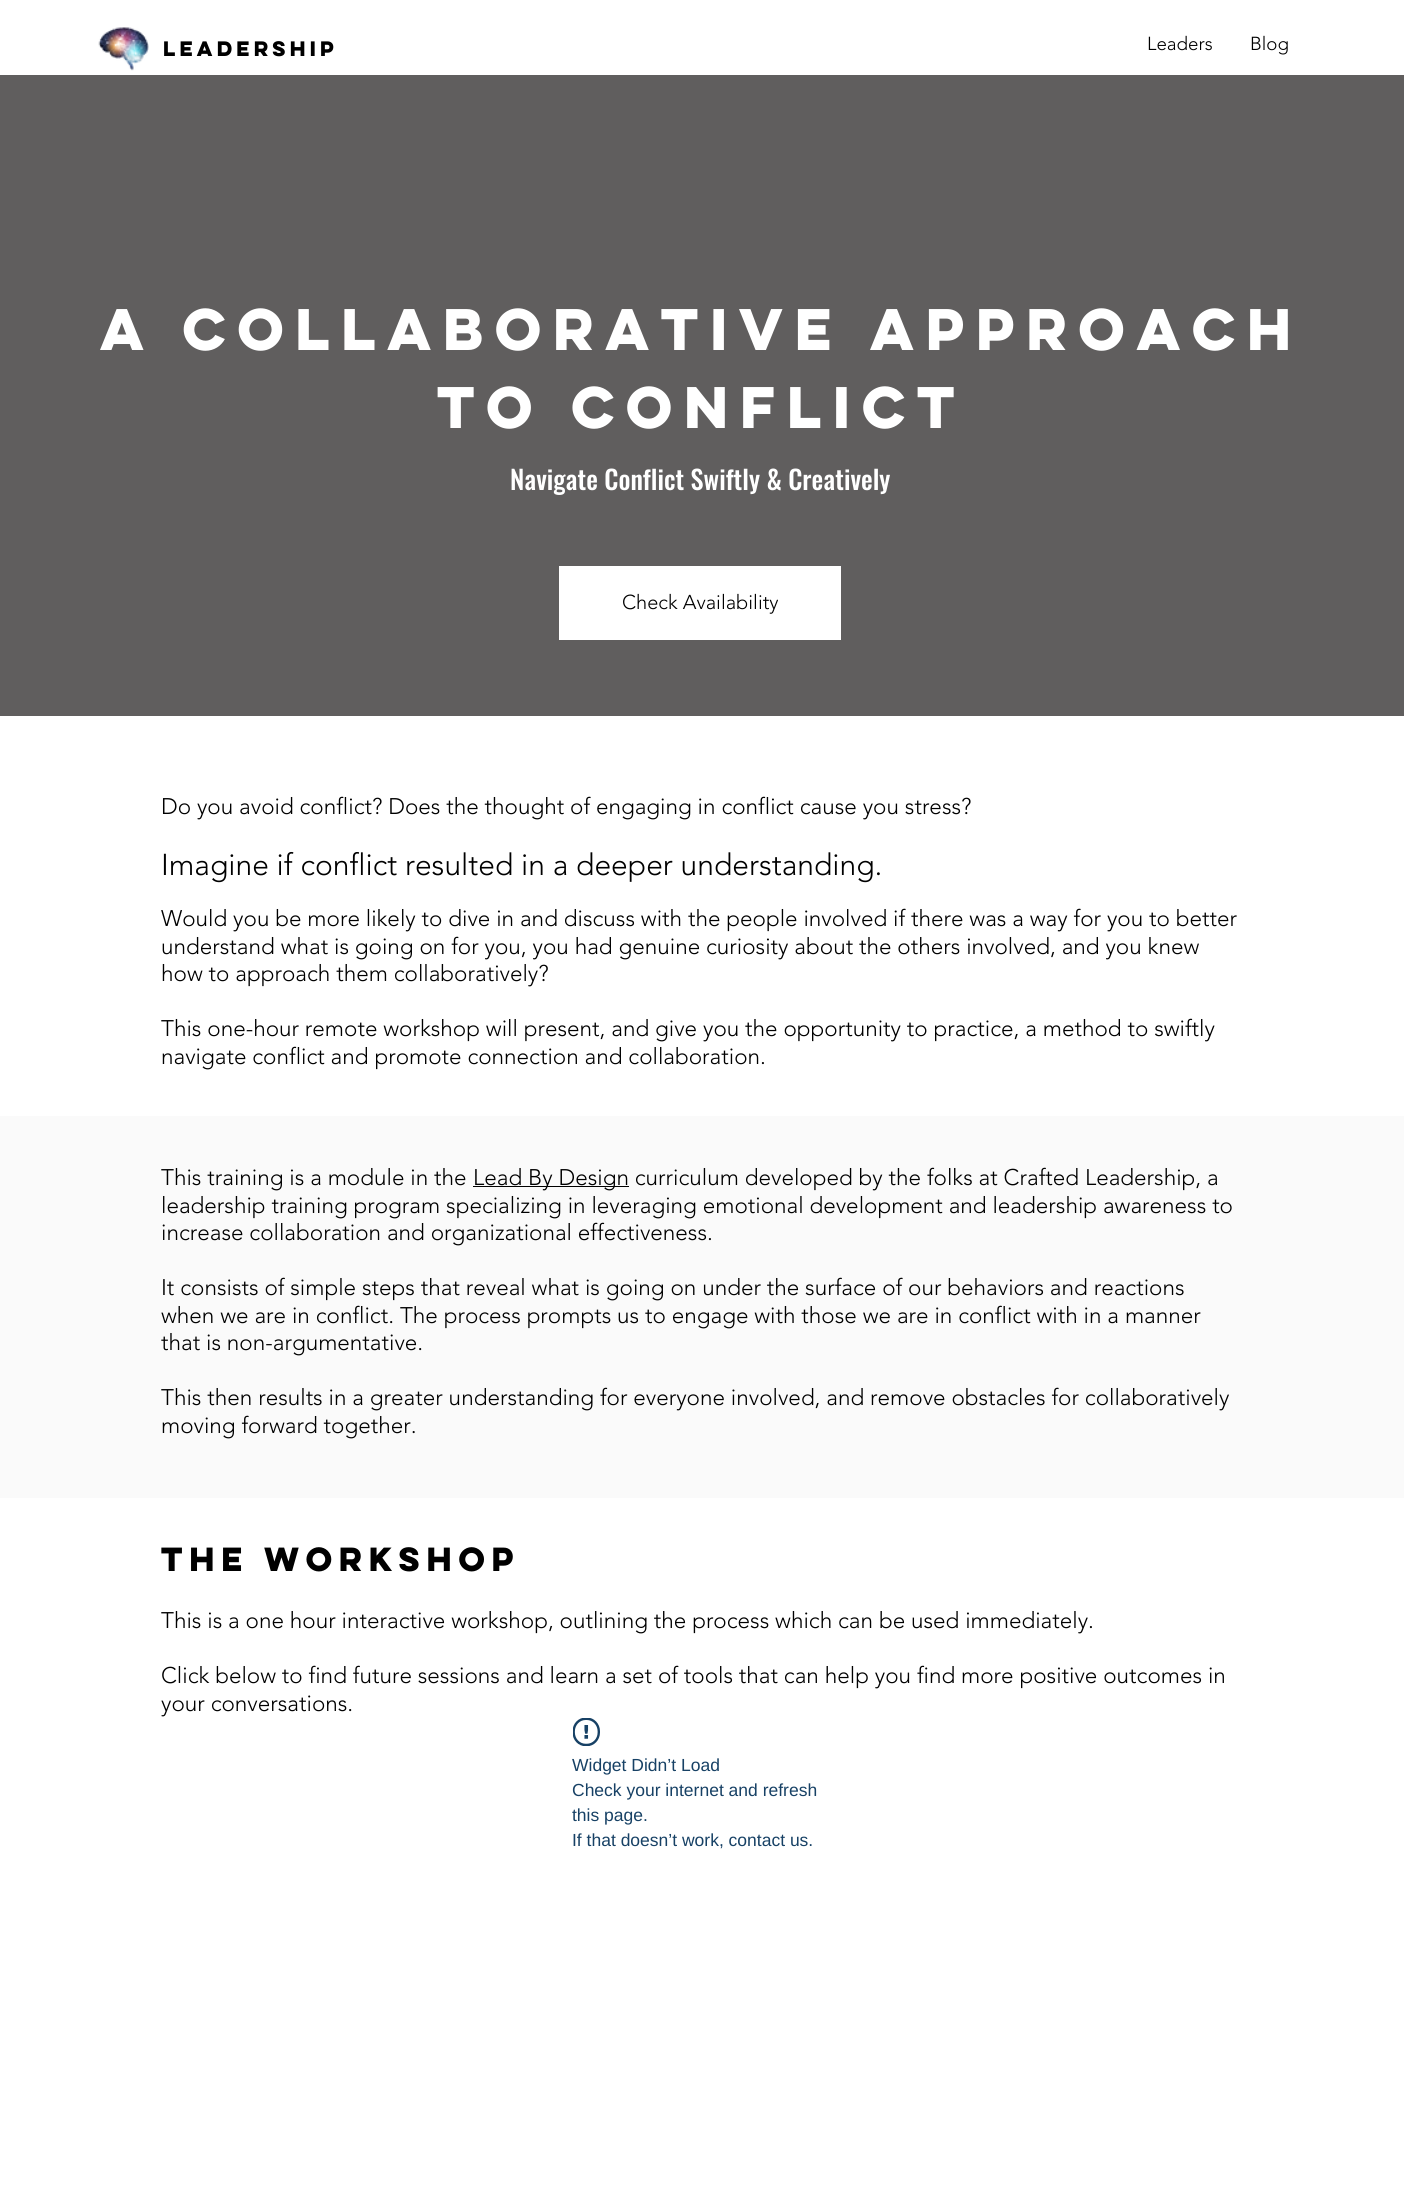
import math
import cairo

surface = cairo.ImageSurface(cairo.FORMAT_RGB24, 1404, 2205)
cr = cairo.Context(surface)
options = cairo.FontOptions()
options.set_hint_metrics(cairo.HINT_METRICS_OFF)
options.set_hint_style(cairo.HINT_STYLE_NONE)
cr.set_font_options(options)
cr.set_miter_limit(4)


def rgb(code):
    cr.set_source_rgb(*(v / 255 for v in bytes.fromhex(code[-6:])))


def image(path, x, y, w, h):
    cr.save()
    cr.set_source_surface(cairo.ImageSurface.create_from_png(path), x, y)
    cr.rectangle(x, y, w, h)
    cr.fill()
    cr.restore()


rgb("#ffffff")
cr.paint()
image("img/1.png", 98, 27, 51, 44)
for x, y, w, h, color in [
    (0, 75, 1404, 641, "#605e5e"),
    (559, 566, 282, 74, "#ffffff"),
    (0, 1116, 1404, 382, "#fafafa"),
    (473, 1186, 156, 1, "#000000"),
]:
    rgb(color)
    cr.rectangle(x, y, w, h)
    cr.fill()
image("img/2.png", 573, 1718, 27, 28)
cr.select_font_face("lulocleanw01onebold", cairo.FONT_SLANT_NORMAL, cairo.FONT_WEIGHT_BOLD)
cr.set_font_size(18.75)
cr.move_to(163, 56)
cr.show_text("leadership")
cr.select_font_face("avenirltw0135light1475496 Light")
cr.move_to(1147, 50)
cr.show_text("Leaders")
cr.move_to(1250, 50)
cr.show_text("Blog")
cr.select_font_face("lulocleanw01onebold", cairo.FONT_SLANT_NORMAL, cairo.FONT_WEIGHT_BOLD)
cr.set_font_size(52.5)
rgb("#ffffff")
cr.move_to(100, 350)
cr.show_text("A collaborative approach")
cr.move_to(437, 428)
cr.show_text("to conflict")
cr.select_font_face("Oswald Medium")
cr.set_font_size(26.25)
cr.move_to(510, 490)
cr.show_text("Navigate Conflict Swiftly & Creatively")
cr.select_font_face("avenirltw0135light1475496 Light")
cr.set_font_size(20)
rgb("#000000")
cr.move_to(622, 609)
cr.show_text("Check Availability")
cr.set_font_size(22.5)
cr.move_to(161, 814)
cr.show_text("Do you avoid conflict? Does the thought of engaging in conflict cause you stress?")
cr.set_font_size(30)
cr.move_to(161, 875)
cr.show_text("Imagine if conflict resulted in a deeper understanding.")
cr.set_font_size(22.5)
for x, y, s in [
    (161, 926, "Would you be more likely to dive in and discuss with the people involved if there was a way for you to better"),
    (161, 954, "understand what is going on for you, you had genuine curiosity about the others involved, and you knew"),
    (161, 981, "how to approach them collaboratively?"),
    (161, 1036, "This one-hour remote workshop will present, and give you the opportunity to practice, a method to swiftly"),
    (161, 1064, "navigate conflict and promote connection and collaboration."),
    (161, 1185, "This training is a module in the"),
    (473, 1185, "Lead By Design curriculum developed by the folks at Crafted Leadership, a"),
    (161, 1213, "leadership training program specializing in leveraging emotional development and leadership awareness to"),
    (161, 1240, "increase collaboration and organizational effectiveness."),
    (161, 1295, "It consists of simple steps that reveal what is going on under the surface of our behaviors and reactions"),
    (161, 1323, "when we are in conflict. The process prompts us to engage with those we are in conflict with in a manner"),
    (161, 1350, "that is non-argumentative."),
    (161, 1405, "This then results in a greater understanding for everyone involved, and remove obstacles for collaboratively"),
    (161, 1433, "moving forward together."),
]:
    cr.move_to(x, y)
    cr.show_text(s)
cr.select_font_face("lulocleanw01onebold", cairo.FONT_SLANT_NORMAL, cairo.FONT_WEIGHT_BOLD)
cr.set_font_size(30)
cr.move_to(161, 1571)
cr.show_text("the workshop")
cr.select_font_face("avenirltw0135light1475496 Light")
cr.set_font_size(22.5)
for x, y, s in [
    (161, 1628, "This is a one hour interactive workshop, outlining the process which can be used immediately."),
    (161, 1683, "Click below to find future sessions and learn a set of tools that can help you find more positive outcomes in"),
    (161, 1711, "your conversations."),
]:
    cr.move_to(x, y)
    cr.show_text(s)
cr.select_font_face("Liberation Sans")
cr.set_font_size(17.5)
rgb("#174165")
for x, y, s in [
    (572, 1771, "Widget Didn’t Load"),
    (572, 1796, "Check your internet and refresh"),
    (572, 1821, "this page."),
    (572, 1846, "If that doesn’t work, contact us."),
]:
    cr.move_to(x, y)
    cr.show_text(s)
surface.write_to_png("page.png")
